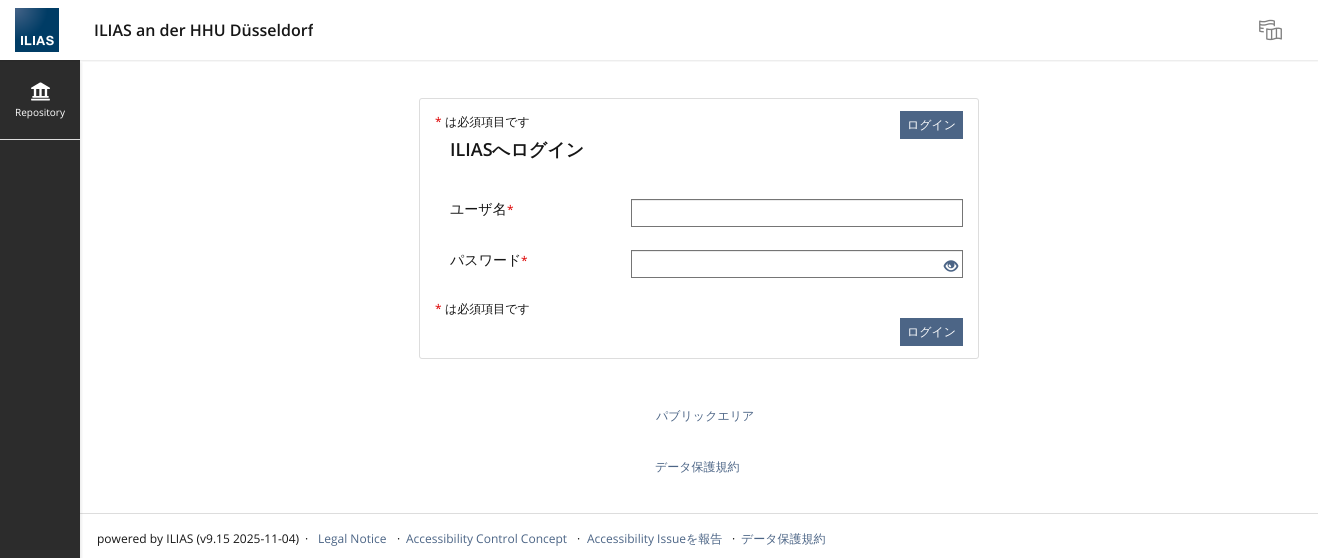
import math
import cairo

surface = cairo.ImageSurface(cairo.FORMAT_RGB24, 1318, 558)
cr = cairo.Context(surface)
options = cairo.FontOptions()
options.set_hint_metrics(cairo.HINT_METRICS_OFF)
options.set_hint_style(cairo.HINT_STYLE_NONE)
cr.set_font_options(options)
cr.set_miter_limit(4)


def rgb(code):
    cr.set_source_rgb(*(v / 255 for v in bytes.fromhex(code[-6:])))


def rrect(x, y, w, h, r):
    cr.new_sub_path()
    for i, (u, v) in enumerate([(x + w - r, y + h - r), (x + r, y + h - r), (x + r, y + r), (x + w - r, y + r)]):
        cr.arc(u, v, r, i * math.pi / 2, (i + 1) * math.pi / 2)
    cr.close_path()


def soft_shadow(x, y, w, h, r, blur, alpha):
    cr.push_group_with_content(cairo.CONTENT_ALPHA)
    cr.set_operator(cairo.OPERATOR_SOURCE)
    for i in range(15, -16, -2):
        e = blur * i / 6
        if min(w, h) + 2 * e > 0:
            cr.set_source_rgba(0, 0, 0, alpha * math.erfc((i - 1) / 8.5) / 2)
            rrect(x - e, y - e, w + 2 * e, h + 2 * e, max(0, min(r + e + blur * .6, min(w, h) / 2 + e)))
            cr.fill()
    cr.mask(cr.pop_group())


def image(path, x, y, w, h):
    cr.save()
    cr.set_source_surface(cairo.ImageSurface.create_from_png(path), x, y)
    cr.rectangle(x, y, w, h)
    cr.fill()
    cr.restore()


rgb("#ffffff")
cr.paint()
rgb("#2c2c2c")
cr.rectangle(0, 60, 80, 498)
cr.fill()
cr.save()
cr.rectangle(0, 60, 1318, 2)
cr.clip()
rgb("#000000")
soft_shadow(0, 1, 1318, 60, 0, 1, 0.1)
cr.restore()
image("img/1.png", 15, 8, 44, 44)
image("img/2.png", 1259, 19, 23, 22)
rgb("#dddddd")
cr.rectangle(80, 513, 1238, 1)
cr.fill()
cr.save()
cr.rectangle(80, 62, 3, 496)
cr.clip()
rgb("#000000")
soft_shadow(1, 63, 80, 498, 0, 2, 0.1)
cr.restore()
cr.rectangle(0, 139, 80, 1)
cr.fill()
image("img/3.png", 31, 82, 19, 19)
rrect(419.5, 98.5, 559, 260, 2.5)
cr.set_line_width(1)
cr.stroke()
rgb("#4c6586")
cr.rectangle(900, 111, 63, 28)
cr.fill()
rgb("#ececec")
cr.rectangle(632, 200, 330, 1)
cr.fill()
cr.rectangle(631.5, 199.5, 331, 27)
rgb("#757575")
cr.stroke()
rgb("#ececec")
cr.rectangle(632, 251, 330, 1)
cr.fill()
cr.rectangle(631.5, 250.5, 331, 27)
rgb("#757575")
cr.stroke()
image("img/4.png", 943, 260, 16, 12)
rgb("#4c6586")
cr.rectangle(900, 318, 63, 28)
cr.fill()
cr.save()
cr.rectangle(15, 8, 298, 45)
cr.clip()
cr.select_font_face("Open Sans SemiBold")
cr.set_font_size(16)
rgb("#161616")
cr.move_to(94, 36)
cr.show_text("ILIAS an der HHU Düsseldorf")
cr.restore()
cr.select_font_face("Open Sans")
cr.set_font_size(10)
rgb("#ffffff")
cr.move_to(15, 116)
cr.show_text("Repository")
cr.set_font_size(12)
rgb("#dd0000")
cr.move_to(435, 126)
cr.show_text("*")
cr.select_font_face("WenQuanYi Zen Hei Medium")
rgb("#161616")
cr.move_to(445, 126)
cr.show_text("は必須項目です")
rgb("#ffffff")
cr.move_to(907, 129)
cr.show_text("ログイン")
cr.select_font_face("Open Sans SemiBold")
cr.set_font_size(18)
rgb("#161616")
cr.move_to(450, 156)
cr.show_text("ILIAS")
cr.select_font_face("WenQuanYi Zen Hei", cairo.FONT_SLANT_NORMAL, cairo.FONT_WEIGHT_BOLD)
cr.move_to(492, 156)
cr.show_text("へログイン")
cr.select_font_face("WenQuanYi Zen Hei Medium")
cr.set_font_size(14)
cr.move_to(450, 214)
cr.show_text("ユーザ名")
cr.select_font_face("Open Sans")
cr.set_font_size(12)
rgb("#dd0000")
cr.move_to(507, 214)
cr.show_text("*")
cr.select_font_face("WenQuanYi Zen Hei Medium")
cr.set_font_size(14)
rgb("#161616")
cr.move_to(450, 265)
cr.show_text("パスワード")
cr.select_font_face("Open Sans")
cr.set_font_size(12)
rgb("#dd0000")
cr.move_to(521, 265)
cr.show_text("*")
cr.move_to(435, 313)
cr.show_text("*")
cr.select_font_face("WenQuanYi Zen Hei Medium")
rgb("#161616")
cr.move_to(445, 313)
cr.show_text("は必須項目です")
rgb("#ffffff")
cr.move_to(907, 336)
cr.show_text("ログイン")
rgb("#4c6586")
cr.move_to(656, 420)
cr.show_text("パブリックエリア")
cr.move_to(655, 471)
cr.show_text("データ保護規約")
cr.select_font_face("Open Sans")
rgb("#161616")
cr.move_to(97, 543)
cr.show_text("powered by ILIAS (v9.15 2025-11-04)")
cr.move_to(305, 543)
cr.show_text("·")
rgb("#4c6586")
cr.move_to(318, 543)
cr.show_text("Legal Notice")
rgb("#161616")
cr.move_to(397, 543)
cr.show_text("·")
rgb("#4c6586")
cr.move_to(406, 543)
cr.show_text("Accessibility Control Concept")
rgb("#161616")
cr.move_to(577, 543)
cr.show_text("·")
rgb("#4c6586")
cr.move_to(587, 543)
cr.show_text("Accessibility Issue")
cr.select_font_face("WenQuanYi Zen Hei Medium")
cr.move_to(686, 543)
cr.show_text("を報告")
cr.select_font_face("Open Sans")
rgb("#161616")
cr.move_to(732, 543)
cr.show_text("·")
cr.select_font_face("WenQuanYi Zen Hei Medium")
rgb("#4c6586")
cr.move_to(741, 543)
cr.show_text("データ保護規約")
surface.write_to_png("page.png")
